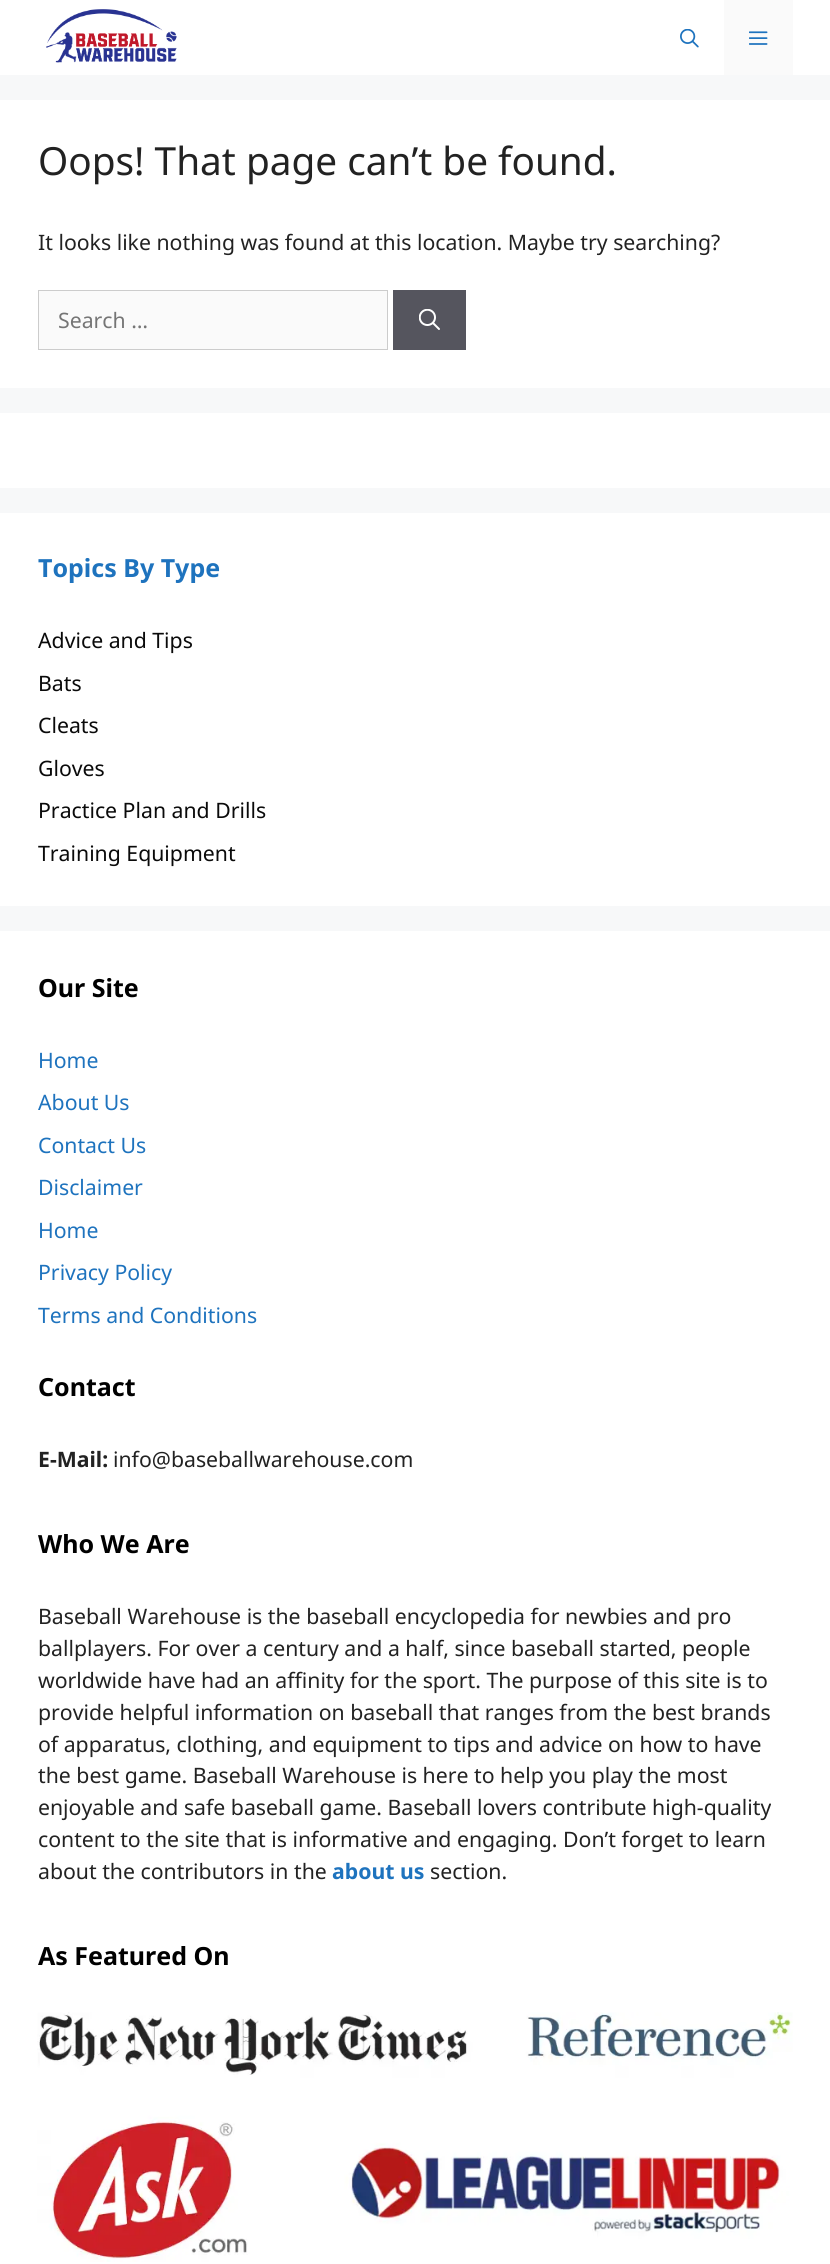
import math
import cairo

surface = cairo.ImageSurface(cairo.FORMAT_RGB24, 830, 2264)
cr = cairo.Context(surface)
options = cairo.FontOptions()
options.set_hint_metrics(cairo.HINT_METRICS_OFF)
options.set_hint_style(cairo.HINT_STYLE_NONE)
cr.set_font_options(options)
cr.set_miter_limit(4)


def rgb(code):
    cr.set_source_rgb(*(v / 255 for v in bytes.fromhex(code[-6:])))


def image(path, x, y, w, h):
    cr.save()
    cr.set_source_surface(cairo.ImageSurface.create_from_png(path), x, y)
    cr.rectangle(x, y, w, h)
    cr.fill()
    cr.restore()


rgb("#f7f8f9")
cr.paint()
rgb("#ffffff")
cr.rectangle(0, 0, 830, 75)
cr.fill()
image("img/1.png", 46, 9, 131, 54)
image("img/2.png", 680, 29, 19, 19)
rgb("#fafafa")
cr.rectangle(724, 0, 69, 75)
cr.fill()
image("img/3.png", 749, 31, 19, 14)
rgb("#ffffff")
cr.rectangle(0, 100, 830, 288)
cr.fill()
rgb("#fafafa")
cr.rectangle(38.5, 290.5, 349, 59)
cr.fill_preserve()
rgb("#cccccc")
cr.set_line_width(1)
cr.stroke()
rgb("#55555e")
cr.rectangle(393, 290, 73, 60)
cr.fill()
image("img/4.png", 419, 309, 21, 21)
for x, y, w, h, color in [
    (0, 413, 830, 75, "#ffffff"),
    (0, 513, 830, 393, "#ffffff"),
    (0, 931, 830, 1333, "#ffffff"),
]:
    rgb(color)
    cr.rectangle(x, y, w, h)
    cr.fill()
image("img/5.png", 37, 2012, 756, 250)
cr.select_font_face("Noto Sans")
cr.set_font_size(38.75)
rgb("#222222")
cr.move_to(38, 175)
cr.show_text("Oops! That page can’t be found.")
cr.set_font_size(21.25)
cr.move_to(38, 250)
cr.show_text("It looks like nothing was found at this location. Maybe try searching?")
rgb("#757575")
cr.move_to(58, 328)
cr.show_text("Search …")
cr.select_font_face("Noto Sans", cairo.FONT_SLANT_NORMAL, cairo.FONT_WEIGHT_BOLD)
cr.set_font_size(25)
rgb("#1e73be")
cr.move_to(38, 577)
cr.show_text("Topics By Type")
cr.select_font_face("Noto Sans")
cr.set_font_size(21.25)
rgb("#0a0a0a")
for x, y, s in [
    (38, 648, "Advice and Tips"),
    (38, 691, "Bats"),
    (38, 733, "Cleats"),
    (38, 776, "Gloves"),
    (38, 818, "Practice Plan and Drills"),
    (38, 861, "Training Equipment"),
]:
    cr.move_to(x, y)
    cr.show_text(s)
cr.select_font_face("Noto Sans", cairo.FONT_SLANT_NORMAL, cairo.FONT_WEIGHT_BOLD)
cr.set_font_size(25)
rgb("#000000")
cr.move_to(38, 997)
cr.show_text("Our Site")
cr.select_font_face("Noto Sans")
cr.set_font_size(21.25)
rgb("#1e73be")
for x, y, s in [
    (38, 1068, "Home"),
    (38, 1110, "About Us"),
    (38, 1153, "Contact Us"),
    (38, 1195, "Disclaimer"),
    (38, 1238, "Home"),
    (38, 1280, "Privacy Policy"),
    (38, 1323, "Terms and Conditions"),
]:
    cr.move_to(x, y)
    cr.show_text(s)
cr.select_font_face("Noto Sans", cairo.FONT_SLANT_NORMAL, cairo.FONT_WEIGHT_BOLD)
cr.set_font_size(25)
rgb("#000000")
cr.move_to(38, 1396)
cr.show_text("Contact")
cr.set_font_size(21.25)
rgb("#222222")
cr.move_to(38, 1467)
cr.show_text("E-Mail:")
cr.select_font_face("Noto Sans")
cr.move_to(113, 1467)
cr.show_text("info@baseballwarehouse.com")
cr.select_font_face("Noto Sans", cairo.FONT_SLANT_NORMAL, cairo.FONT_WEIGHT_BOLD)
cr.set_font_size(25)
rgb("#000000")
cr.move_to(38, 1553)
cr.show_text("Who We Are")
cr.select_font_face("Noto Sans")
cr.set_font_size(21.25)
rgb("#222222")
for x, y, s in [
    (38, 1624, "Baseball Warehouse is the baseball encyclopedia for newbies and pro"),
    (38, 1656, "ballplayers. For over a century and a half, since baseball started, people"),
    (38, 1688, "worldwide have had an affinity for the sport. The purpose of this site is to"),
    (38, 1720, "provide helpful information on baseball that ranges from the best brands"),
    (38, 1752, "of apparatus, clothing, and equipment to tips and advice on how to have"),
    (38, 1783, "the best game. Baseball Warehouse is here to help you play the most"),
    (38, 1815, "enjoyable and safe baseball game. Baseball lovers contribute high-quality"),
    (38, 1847, "content to the site that is informative and engaging. Don’t forget to learn"),
    (38, 1879, "about the contributors in the"),
]:
    cr.move_to(x, y)
    cr.show_text(s)
cr.select_font_face("Noto Sans", cairo.FONT_SLANT_NORMAL, cairo.FONT_WEIGHT_BOLD)
rgb("#1e73be")
cr.move_to(332, 1879)
cr.show_text("about us")
cr.select_font_face("Noto Sans")
rgb("#222222")
cr.move_to(430, 1879)
cr.show_text("section.")
cr.select_font_face("Noto Sans", cairo.FONT_SLANT_NORMAL, cairo.FONT_WEIGHT_BOLD)
cr.set_font_size(25)
rgb("#000000")
cr.move_to(38, 1965)
cr.show_text("As Featured On")
surface.write_to_png("page.png")
